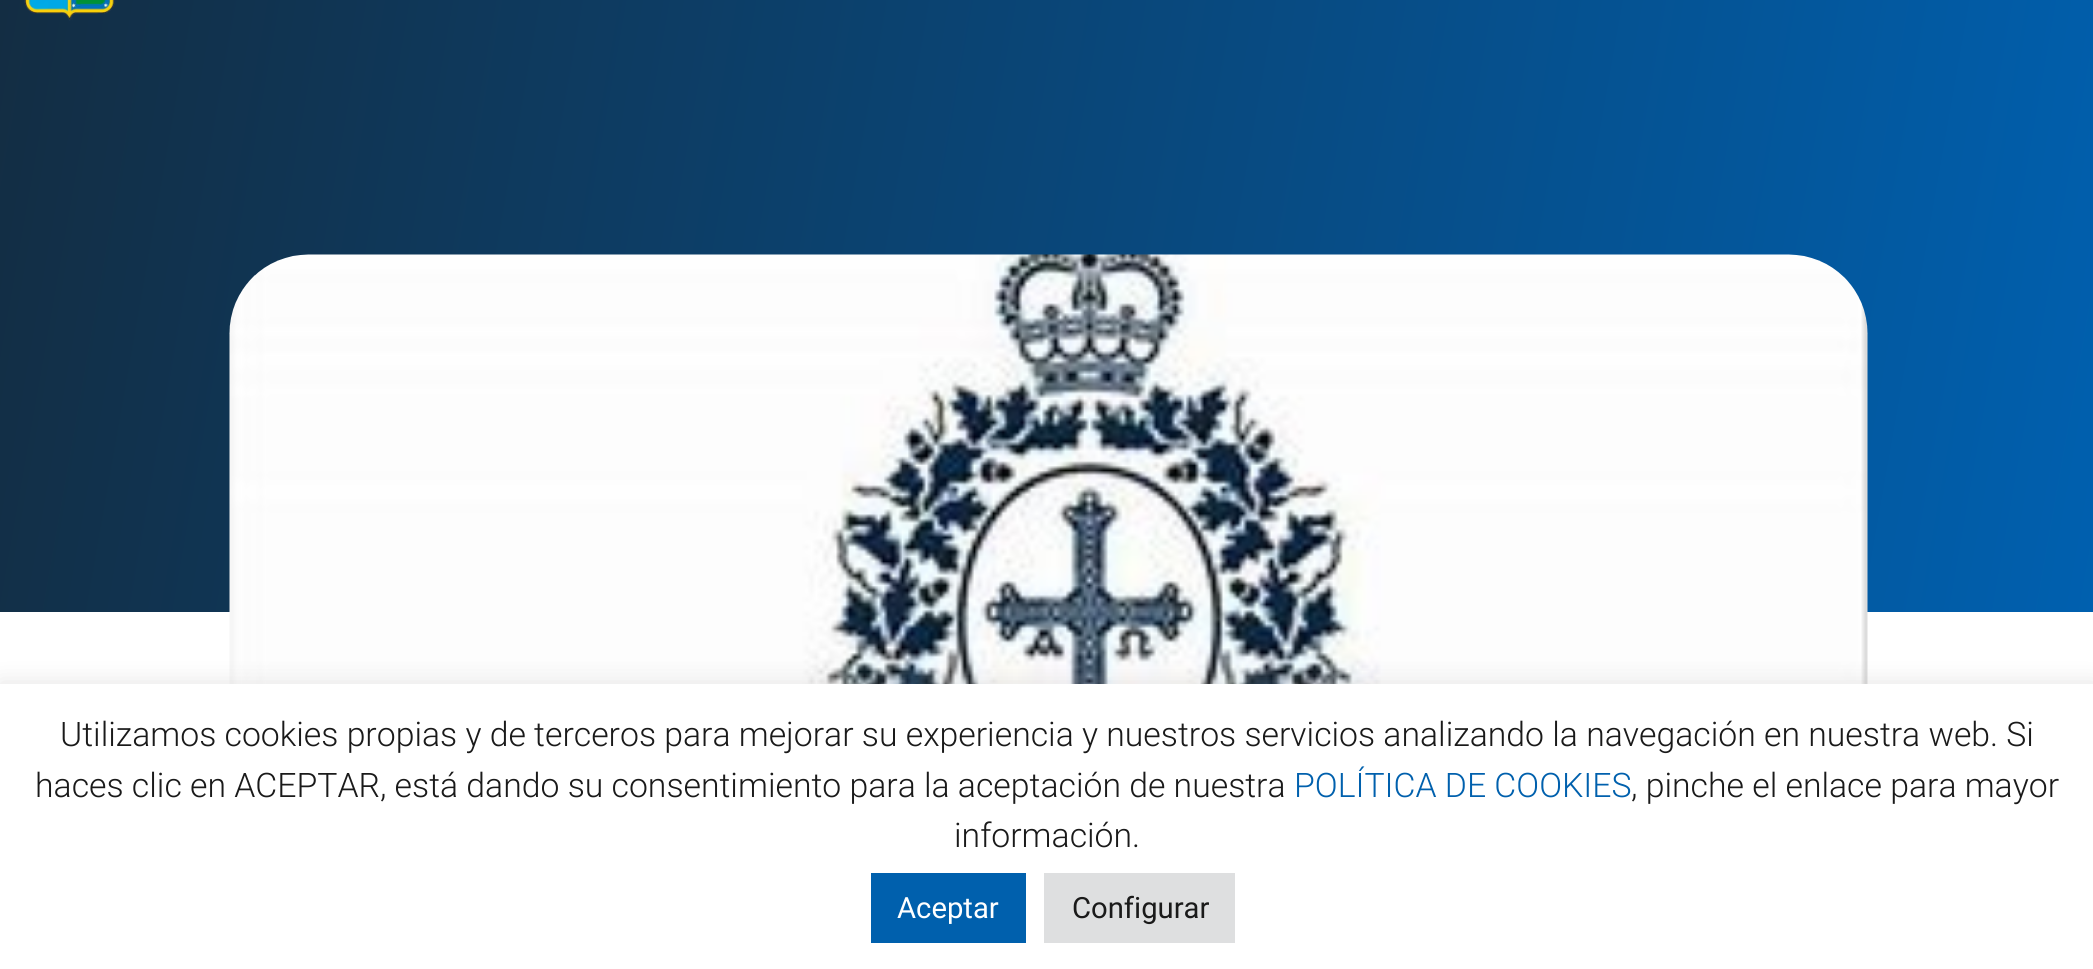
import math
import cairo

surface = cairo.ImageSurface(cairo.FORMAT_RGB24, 2093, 969)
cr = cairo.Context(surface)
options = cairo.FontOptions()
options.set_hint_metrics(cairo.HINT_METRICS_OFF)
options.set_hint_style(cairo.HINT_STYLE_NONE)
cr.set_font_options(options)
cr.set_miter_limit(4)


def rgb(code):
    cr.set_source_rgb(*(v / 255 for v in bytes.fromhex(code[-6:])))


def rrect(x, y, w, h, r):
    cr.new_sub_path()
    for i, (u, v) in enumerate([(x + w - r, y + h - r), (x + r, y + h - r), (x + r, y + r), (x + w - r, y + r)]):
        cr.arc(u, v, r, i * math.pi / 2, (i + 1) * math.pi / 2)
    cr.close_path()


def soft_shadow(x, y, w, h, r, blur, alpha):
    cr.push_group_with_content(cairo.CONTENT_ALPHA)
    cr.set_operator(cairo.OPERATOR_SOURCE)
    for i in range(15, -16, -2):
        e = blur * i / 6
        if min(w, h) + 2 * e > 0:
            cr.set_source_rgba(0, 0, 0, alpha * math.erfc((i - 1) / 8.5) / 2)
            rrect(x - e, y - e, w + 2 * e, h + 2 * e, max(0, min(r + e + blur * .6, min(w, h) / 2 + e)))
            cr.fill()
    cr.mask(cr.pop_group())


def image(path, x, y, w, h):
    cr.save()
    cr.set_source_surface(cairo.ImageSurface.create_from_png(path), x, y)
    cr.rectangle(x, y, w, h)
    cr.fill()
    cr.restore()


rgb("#ffffff")
cr.paint()
gradient = cairo.LinearGradient(-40, 0.6, 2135, 384)
gradient.add_color_stop_rgba(0, 0.075, 0.173, 0.255, 1)
gradient.add_color_stop_rgba(1, 0, 0.376, 0.686, 1)
cr.set_source(gradient)
cr.rectangle(0, 0, 2093, 612)
cr.fill()
image("img/1.png", 229, 254, 1639, 430)
image("img/2.png", 24, 0, 91, 21)
rgb("#acabab")
soft_shadow(0, 682, 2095, 286, 0, 11, 0.3)
for x, y, w, h, color in [
    (0, 684, 2093, 285, "#ffffff"),
    (871, 873, 155, 70, "#0060ad"),
    (1044, 873, 191, 70, "#dedfe0"),
]:
    rgb(color)
    cr.rectangle(x, y, w, h)
    cr.fill()
cr.select_font_face("Roboto Light")
cr.set_font_size(33.75)
rgb("#1a1a1a")
cr.move_to(60, 746)
cr.show_text("Utilizamos cookies propias y de terceros para mejorar su experiencia y nuestros servicios analizando la navegación en nuestra web. Si")
cr.move_to(35, 797)
cr.show_text("haces clic en ACEPTAR, está dando su consentimiento para la aceptación de nuestra")
rgb("#0060ad")
cr.move_to(1294, 797)
cr.show_text("POLÍTICA DE COOKIES")
rgb("#1a1a1a")
cr.move_to(1631, 797)
cr.show_text(", pinche el enlace para mayor")
cr.move_to(954, 847)
cr.show_text("información.")
cr.select_font_face("Roboto")
cr.set_font_size(29.25)
rgb("#ffffff")
cr.move_to(897, 918)
cr.show_text("Aceptar")
rgb("#1a1a1a")
cr.move_to(1072, 918)
cr.show_text("Configurar")
surface.write_to_png("page.png")
